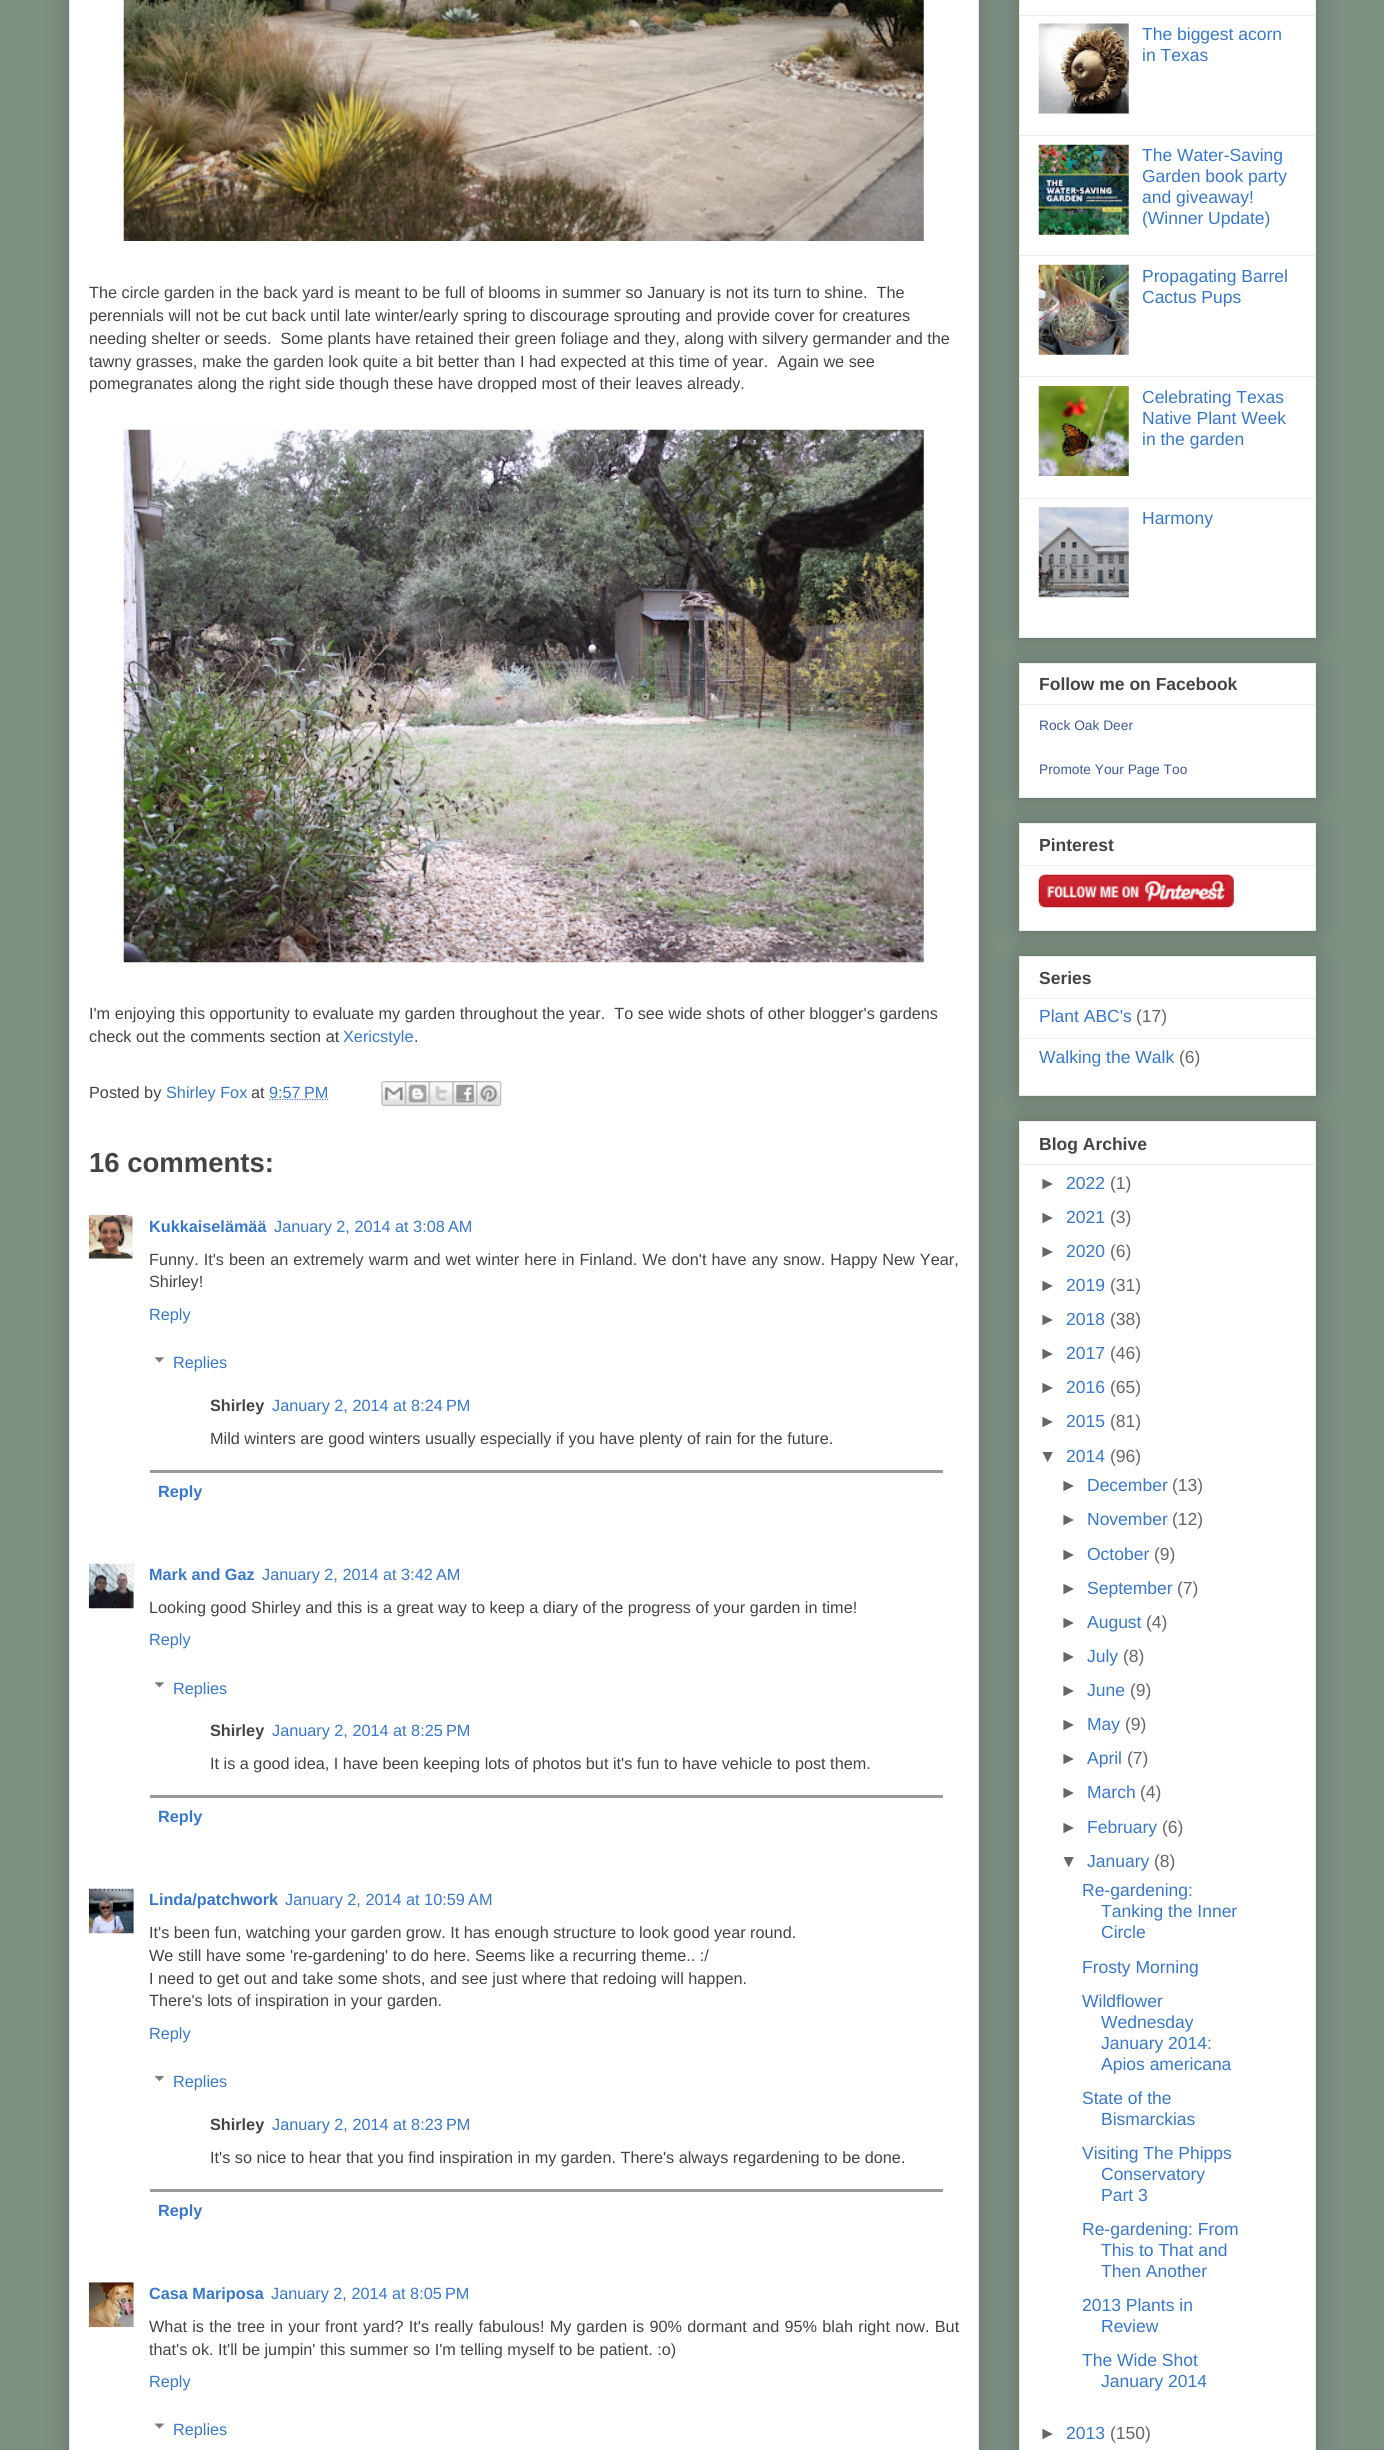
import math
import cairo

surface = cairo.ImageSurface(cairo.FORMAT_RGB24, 1384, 2450)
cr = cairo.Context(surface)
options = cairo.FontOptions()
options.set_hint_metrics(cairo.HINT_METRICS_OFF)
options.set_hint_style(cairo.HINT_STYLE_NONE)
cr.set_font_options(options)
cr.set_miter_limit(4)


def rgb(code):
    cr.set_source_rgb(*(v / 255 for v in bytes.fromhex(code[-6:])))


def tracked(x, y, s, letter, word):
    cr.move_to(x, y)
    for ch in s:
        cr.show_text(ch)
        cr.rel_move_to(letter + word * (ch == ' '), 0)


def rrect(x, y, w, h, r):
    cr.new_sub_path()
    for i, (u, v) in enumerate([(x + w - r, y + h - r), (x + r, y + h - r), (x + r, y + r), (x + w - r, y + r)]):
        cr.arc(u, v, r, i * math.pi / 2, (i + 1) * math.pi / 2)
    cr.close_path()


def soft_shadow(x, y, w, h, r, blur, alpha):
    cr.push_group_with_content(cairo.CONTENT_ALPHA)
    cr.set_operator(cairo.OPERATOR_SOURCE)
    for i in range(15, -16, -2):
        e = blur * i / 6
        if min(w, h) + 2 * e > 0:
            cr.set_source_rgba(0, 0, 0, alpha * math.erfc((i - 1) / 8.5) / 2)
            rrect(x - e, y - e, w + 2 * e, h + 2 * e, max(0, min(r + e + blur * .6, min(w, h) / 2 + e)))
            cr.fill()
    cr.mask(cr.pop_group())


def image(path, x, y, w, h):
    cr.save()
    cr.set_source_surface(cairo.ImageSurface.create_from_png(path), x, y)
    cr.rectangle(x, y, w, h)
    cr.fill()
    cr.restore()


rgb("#7c9081")
cr.paint()
rgb("#000000")
soft_shadow(69, -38, 910, 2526, 0, 12.5, 0.2)
rgb("#ffffff")
cr.rectangle(69.5, -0.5, 909, 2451)
cr.fill_preserve()
rgb("#eeeeee")
cr.set_line_width(1)
cr.stroke()
image("img/1.png", 123, 0, 801, 241)
image("img/2.png", 123, 429, 801, 534)
cr.new_path()
cr.move_to(269.5, 1099.5)
cr.line_to(328.5, 1099.5)
rgb("#3778cd")
cr.set_line_width(1.2)
cr.set_dash([1.25, 1.25])
cr.stroke()
image("img/3.png", 381, 1081, 24, 25)
image("img/4.png", 405, 1081, 24, 25)
image("img/5.png", 428, 1081, 25, 25)
image("img/6.png", 452, 1081, 25, 25)
image("img/7.png", 476, 1081, 26, 25)
image("img/8.png", 88, 1214, 45, 45)
image("img/9.png", 155, 1357, 9, 6)
rgb("#999999")
cr.rectangle(150, 1470, 793, 3)
cr.fill()
image("img/10.png", 88, 1563, 46, 46)
image("img/9.png", 155, 1682, 9, 6)
cr.rectangle(150, 1795, 793, 3)
cr.fill()
image("img/11.png", 88, 1888, 46, 46)
image("img/12.png", 155, 2075, 9, 7)
cr.rectangle(150, 2189, 793, 3)
cr.fill()
image("img/13.png", 88, 2282, 46, 46)
image("img/14.png", 155, 2423, 9, 6)
rgb("#000000")
soft_shadow(1019, -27, 297, 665, 0, 12.5, 0.2)
rgb("#ffffff")
cr.rectangle(1019.5, -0.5, 296, 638)
cr.fill_preserve()
rgb("#eeeeee")
cr.set_line_width(1)
cr.set_dash([])
cr.stroke()
cr.rectangle(1020, 15, 295, 1)
cr.fill()
image("img/15.png", 1038, 23, 91, 91)
cr.rectangle(1020, 135, 295, 1)
cr.fill()
image("img/16.png", 1038, 144, 91, 91)
cr.rectangle(1020, 255, 295, 1)
cr.fill()
image("img/17.png", 1038, 264, 91, 91)
cr.rectangle(1020, 376, 295, 1)
cr.fill()
image("img/18.png", 1038, 386, 91, 90)
cr.rectangle(1020, 498, 295, 1)
cr.fill()
image("img/19.png", 1038, 507, 91, 91)
rgb("#000000")
soft_shadow(1019, 663, 297, 135, 0, 12.5, 0.2)
rgb("#ffffff")
cr.rectangle(1019.5, 663.5, 296, 134)
cr.fill_preserve()
rgb("#eeeeee")
cr.stroke()
cr.rectangle(1020, 704, 295, 1)
cr.fill()
rgb("#000000")
soft_shadow(1019, 823, 297, 108, 0, 12.5, 0.2)
rgb("#ffffff")
cr.rectangle(1019.5, 823.5, 296, 107)
cr.fill_preserve()
rgb("#eeeeee")
cr.stroke()
cr.rectangle(1020, 865, 295, 1)
cr.fill()
image("img/20.png", 1038, 874, 196, 34)
rgb("#000000")
soft_shadow(1019, 956, 297, 140, 0, 12.5, 0.2)
rgb("#ffffff")
cr.rectangle(1019.5, 956.5, 296, 139)
cr.fill_preserve()
rgb("#eeeeee")
cr.stroke()
cr.rectangle(1020, 998, 295, 1)
cr.fill()
cr.rectangle(1020, 1038, 295, 1)
cr.fill()
rgb("#000000")
soft_shadow(1019, 1121, 297, 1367, 0, 12.5, 0.2)
rgb("#ffffff")
cr.rectangle(1019.5, 1121.5, 296, 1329)
cr.fill_preserve()
rgb("#eeeeee")
cr.stroke()
cr.rectangle(1020, 1164, 295, 1)
cr.fill()
cr.select_font_face("Liberation Sans")
cr.set_font_size(16.25)
rgb("#444444")
for x, y, s in [
    (89, 298, "The circle garden in the back yard is meant to be full of blooms in summer so January is not its turn to shine.  The"),
    (89, 321, "perennials will not be cut back until late winter/early spring to discourage sprouting and provide cover for creatures"),
    (89, 344, "needing shelter or seeds.  Some plants have retained their green foliage and they, along with silvery germander and the"),
    (89, 367, "tawny grasses, make the garden look quite a bit better than I had expected at this time of year.  Again we see"),
    (89, 389, "pomegranates along the right side though these have dropped most of their leaves already."),
    (89, 1019, "I'm enjoying this opportunity to evaluate my garden throughout the year.  To see wide shots of other blogger's gardens"),
    (89, 1042, "check out the comments section at"),
]:
    cr.move_to(x, y)
    cr.show_text(s)
rgb("#3778cd")
cr.move_to(343, 1042)
cr.show_text("Xericstyle")
rgb("#444444")
cr.move_to(414, 1042)
cr.show_text(".")
cr.move_to(89, 1098)
cr.show_text("Posted by")
rgb("#3778cd")
cr.move_to(166, 1098)
cr.show_text("Shirley Fox")
rgb("#444444")
cr.move_to(251, 1098)
cr.show_text("at")
rgb("#3778cd")
cr.move_to(269, 1098)
cr.show_text("9:57 PM")
cr.select_font_face("Liberation Sans", cairo.FONT_SLANT_NORMAL, cairo.FONT_WEIGHT_BOLD)
cr.set_font_size(27.5)
rgb("#444444")
cr.move_to(89, 1172)
cr.show_text("16 comments:")
cr.set_font_size(16.25)
rgb("#3778cd")
cr.move_to(149, 1232)
cr.show_text("Kukkaiselämää")
cr.select_font_face("Liberation Sans")
cr.move_to(274, 1232)
cr.show_text("January 2, 2014 at 3:08 AM")
rgb("#444444")
tracked(149, 1265, "Funny. It's been an extremely warm and wet winter here in Finland. We don't have any snow. Happy New Year,", 0, 0.5)
cr.move_to(149, 1287)
cr.show_text("Shirley!")
rgb("#3778cd")
cr.move_to(149, 1320)
cr.show_text("Reply")
cr.move_to(173, 1368)
cr.show_text("Replies")
cr.select_font_face("Liberation Sans", cairo.FONT_SLANT_NORMAL, cairo.FONT_WEIGHT_BOLD)
rgb("#444444")
cr.move_to(210, 1411)
cr.show_text("Shirley")
cr.select_font_face("Liberation Sans")
rgb("#3778cd")
cr.move_to(272, 1411)
cr.show_text("January 2, 2014 at 8:24 PM")
rgb("#444444")
cr.move_to(210, 1444)
cr.show_text("Mild winters are good winters usually especially if you have plenty of rain for the future.")
cr.select_font_face("Liberation Sans", cairo.FONT_SLANT_NORMAL, cairo.FONT_WEIGHT_BOLD)
rgb("#3778cd")
cr.move_to(158, 1497)
cr.show_text("Reply")
cr.move_to(149, 1580)
cr.show_text("Mark and Gaz")
cr.select_font_face("Liberation Sans")
cr.move_to(262, 1580)
cr.show_text("January 2, 2014 at 3:42 AM")
rgb("#444444")
cr.move_to(149, 1613)
cr.show_text("Looking good Shirley and this is a great way to keep a diary of the progress of your garden in time!")
rgb("#3778cd")
cr.move_to(149, 1645)
cr.show_text("Reply")
cr.move_to(173, 1694)
cr.show_text("Replies")
cr.select_font_face("Liberation Sans", cairo.FONT_SLANT_NORMAL, cairo.FONT_WEIGHT_BOLD)
rgb("#444444")
cr.move_to(210, 1736)
cr.show_text("Shirley")
cr.select_font_face("Liberation Sans")
rgb("#3778cd")
cr.move_to(272, 1736)
cr.show_text("January 2, 2014 at 8:25 PM")
rgb("#444444")
cr.move_to(210, 1769)
cr.show_text("It is a good idea, I have been keeping lots of photos but it's fun to have vehicle to post them.")
cr.select_font_face("Liberation Sans", cairo.FONT_SLANT_NORMAL, cairo.FONT_WEIGHT_BOLD)
rgb("#3778cd")
cr.move_to(158, 1822)
cr.show_text("Reply")
cr.move_to(149, 1905)
cr.show_text("Linda/patchwork")
cr.select_font_face("Liberation Sans")
cr.move_to(285, 1905)
cr.show_text("January 2, 2014 at 10:59 AM")
rgb("#444444")
for x, y, s in [
    (149, 1938, "It's been fun, watching your garden grow. It has enough structure to look good year round."),
    (149, 1961, "We still have some 're-gardening' to do here. Seems like a recurring theme.. :/"),
    (149, 1984, "I need to get out and take some shots, and see just where that redoing will happen."),
    (149, 2006, "There's lots of inspiration in your garden."),
]:
    cr.move_to(x, y)
    cr.show_text(s)
rgb("#3778cd")
cr.move_to(149, 2039)
cr.show_text("Reply")
cr.move_to(173, 2087)
cr.show_text("Replies")
cr.select_font_face("Liberation Sans", cairo.FONT_SLANT_NORMAL, cairo.FONT_WEIGHT_BOLD)
rgb("#444444")
cr.move_to(210, 2130)
cr.show_text("Shirley")
cr.select_font_face("Liberation Sans")
rgb("#3778cd")
cr.move_to(272, 2130)
cr.show_text("January 2, 2014 at 8:23 PM")
rgb("#444444")
cr.move_to(210, 2163)
cr.show_text("It's so nice to hear that you find inspiration in my garden. There's always regardening to be done.")
cr.select_font_face("Liberation Sans", cairo.FONT_SLANT_NORMAL, cairo.FONT_WEIGHT_BOLD)
rgb("#3778cd")
cr.move_to(158, 2216)
cr.show_text("Reply")
cr.move_to(149, 2299)
cr.show_text("Casa Mariposa")
cr.select_font_face("Liberation Sans")
cr.move_to(271, 2299)
cr.show_text("January 2, 2014 at 8:05 PM")
rgb("#444444")
tracked(149, 2332, "What is the tree in your front yard? It's really fabulous! My garden is 90% dormant and 95% blah right now. But", 0, 0.75)
cr.move_to(149, 2355)
cr.show_text("that's ok. It'll be jumpin' this summer so I'm telling myself to be patient. :o)")
rgb("#3778cd")
cr.move_to(149, 2387)
cr.show_text("Reply")
cr.move_to(173, 2435)
cr.show_text("Replies")
cr.set_font_size(17.5)
for x, y, s in [
    (1142, 40, "The biggest acorn"),
    (1142, 61, "in Texas"),
    (1142, 161, "The Water-Saving"),
    (1142, 182, "Garden book party"),
    (1142, 203, "and giveaway!"),
    (1142, 224, "(Winner Update)"),
    (1142, 282, "Propagating Barrel"),
    (1142, 303, "Cactus Pups"),
    (1142, 403, "Celebrating Texas"),
    (1142, 424, "Native Plant Week"),
    (1142, 445, "in the garden"),
    (1142, 524, "Harmony"),
]:
    cr.move_to(x, y)
    cr.show_text(s)
cr.select_font_face("Liberation Sans", cairo.FONT_SLANT_NORMAL, cairo.FONT_WEIGHT_BOLD)
rgb("#444444")
cr.move_to(1039, 690)
cr.show_text("Follow me on Facebook")
cr.select_font_face("Liberation Sans")
cr.set_font_size(13.75)
rgb("#3b5998")
cr.move_to(1039, 730)
cr.show_text("Rock Oak Deer")
cr.move_to(1039, 774)
cr.show_text("Promote Your Page Too")
cr.select_font_face("Liberation Sans", cairo.FONT_SLANT_NORMAL, cairo.FONT_WEIGHT_BOLD)
cr.set_font_size(17.5)
rgb("#444444")
cr.move_to(1039, 851)
cr.show_text("Pinterest")
cr.move_to(1039, 984)
cr.show_text("Series")
cr.select_font_face("Liberation Sans")
rgb("#3778cd")
cr.move_to(1039, 1022)
cr.show_text("Plant ABC's")
rgb("#666666")
cr.move_to(1136, 1022)
cr.show_text("(17)")
rgb("#3778cd")
cr.move_to(1039, 1063)
cr.show_text("Walking the Walk")
rgb("#666666")
cr.move_to(1179, 1063)
cr.show_text("(6)")
cr.select_font_face("Liberation Sans", cairo.FONT_SLANT_NORMAL, cairo.FONT_WEIGHT_BOLD)
rgb("#444444")
cr.move_to(1039, 1150)
cr.show_text("Blog Archive")
cr.select_font_face("Liberation Sans")
rgb("#666666")
cr.move_to(1039, 1189)
cr.show_text("►")
rgb("#3778cd")
cr.move_to(1066, 1189)
cr.show_text("2022")
rgb("#666666")
cr.move_to(1110, 1189)
cr.show_text("(1)")
cr.move_to(1039, 1223)
cr.show_text("►")
rgb("#3778cd")
cr.move_to(1066, 1223)
cr.show_text("2021")
rgb("#666666")
cr.move_to(1110, 1223)
cr.show_text("(3)")
cr.move_to(1039, 1257)
cr.show_text("►")
rgb("#3778cd")
cr.move_to(1066, 1257)
cr.show_text("2020")
rgb("#666666")
cr.move_to(1110, 1257)
cr.show_text("(6)")
cr.move_to(1039, 1291)
cr.show_text("►")
rgb("#3778cd")
cr.move_to(1066, 1291)
cr.show_text("2019")
rgb("#666666")
cr.move_to(1110, 1291)
cr.show_text("(31)")
cr.move_to(1039, 1325)
cr.show_text("►")
rgb("#3778cd")
cr.move_to(1066, 1325)
cr.show_text("2018")
rgb("#666666")
cr.move_to(1110, 1325)
cr.show_text("(38)")
cr.move_to(1039, 1359)
cr.show_text("►")
rgb("#3778cd")
cr.move_to(1066, 1359)
cr.show_text("2017")
rgb("#666666")
cr.move_to(1110, 1359)
cr.show_text("(46)")
cr.move_to(1039, 1393)
cr.show_text("►")
rgb("#3778cd")
cr.move_to(1066, 1393)
cr.show_text("2016")
rgb("#666666")
cr.move_to(1110, 1393)
cr.show_text("(65)")
cr.move_to(1039, 1427)
cr.show_text("►")
rgb("#3778cd")
cr.move_to(1066, 1427)
cr.show_text("2015")
rgb("#666666")
cr.move_to(1110, 1427)
cr.show_text("(81)")
cr.move_to(1039, 1462)
cr.show_text("▼")
rgb("#3778cd")
cr.move_to(1066, 1462)
cr.show_text("2014")
rgb("#666666")
cr.move_to(1110, 1462)
cr.show_text("(96)")
cr.move_to(1060, 1491)
cr.show_text("►")
rgb("#3778cd")
cr.move_to(1087, 1491)
cr.show_text("December")
rgb("#666666")
cr.move_to(1172, 1491)
cr.show_text("(13)")
cr.move_to(1060, 1525)
cr.show_text("►")
rgb("#3778cd")
cr.move_to(1087, 1525)
cr.show_text("November")
rgb("#666666")
cr.move_to(1172, 1525)
cr.show_text("(12)")
cr.move_to(1060, 1560)
cr.show_text("►")
rgb("#3778cd")
cr.move_to(1087, 1560)
cr.show_text("October")
rgb("#666666")
cr.move_to(1154, 1560)
cr.show_text("(9)")
cr.move_to(1060, 1594)
cr.show_text("►")
rgb("#3778cd")
cr.move_to(1087, 1594)
cr.show_text("September")
rgb("#666666")
cr.move_to(1177, 1594)
cr.show_text("(7)")
cr.move_to(1060, 1628)
cr.show_text("►")
rgb("#3778cd")
cr.move_to(1087, 1628)
cr.show_text("August")
rgb("#666666")
cr.move_to(1146, 1628)
cr.show_text("(4)")
cr.move_to(1060, 1662)
cr.show_text("►")
rgb("#3778cd")
cr.move_to(1087, 1662)
cr.show_text("July")
rgb("#666666")
cr.move_to(1123, 1662)
cr.show_text("(8)")
cr.move_to(1060, 1696)
cr.show_text("►")
rgb("#3778cd")
cr.move_to(1087, 1696)
cr.show_text("June")
rgb("#666666")
cr.move_to(1130, 1696)
cr.show_text("(9)")
cr.move_to(1060, 1730)
cr.show_text("►")
rgb("#3778cd")
cr.move_to(1087, 1730)
cr.show_text("May")
rgb("#666666")
cr.move_to(1125, 1730)
cr.show_text("(9)")
cr.move_to(1060, 1764)
cr.show_text("►")
rgb("#3778cd")
cr.move_to(1087, 1764)
cr.show_text("April")
rgb("#666666")
cr.move_to(1127, 1764)
cr.show_text("(7)")
cr.move_to(1060, 1798)
cr.show_text("►")
rgb("#3778cd")
cr.move_to(1087, 1798)
cr.show_text("March")
rgb("#666666")
cr.move_to(1140, 1798)
cr.show_text("(4)")
cr.move_to(1060, 1833)
cr.show_text("►")
rgb("#3778cd")
cr.move_to(1087, 1833)
cr.show_text("February")
rgb("#666666")
cr.move_to(1162, 1833)
cr.show_text("(6)")
cr.move_to(1060, 1867)
cr.show_text("▼")
rgb("#3778cd")
cr.move_to(1087, 1867)
cr.show_text("January")
rgb("#666666")
cr.move_to(1154, 1867)
cr.show_text("(8)")
rgb("#3778cd")
for x, y, s in [
    (1082, 1896, "Re-gardening:"),
    (1101, 1917, "Tanking the Inner"),
    (1101, 1938, "Circle"),
    (1082, 1973, "Frosty Morning"),
    (1082, 2007, "Wildflower"),
    (1101, 2028, "Wednesday"),
    (1101, 2049, "January 2014:"),
    (1101, 2070, "Apios americana"),
    (1082, 2104, "State of the"),
    (1101, 2125, "Bismarckias"),
    (1082, 2159, "Visiting The Phipps"),
    (1101, 2180, "Conservatory"),
    (1101, 2201, "Part 3"),
    (1082, 2235, "Re-gardening: From"),
    (1101, 2256, "This to That and"),
    (1101, 2277, "Then Another"),
    (1082, 2311, "2013 Plants in"),
    (1101, 2332, "Review"),
    (1082, 2366, "The Wide Shot"),
    (1101, 2387, "January 2014"),
]:
    cr.move_to(x, y)
    cr.show_text(s)
rgb("#666666")
cr.move_to(1039, 2439)
cr.show_text("►")
rgb("#3778cd")
cr.move_to(1066, 2439)
cr.show_text("2013")
rgb("#666666")
cr.move_to(1110, 2439)
cr.show_text("(150)")
surface.write_to_png("page.png")
